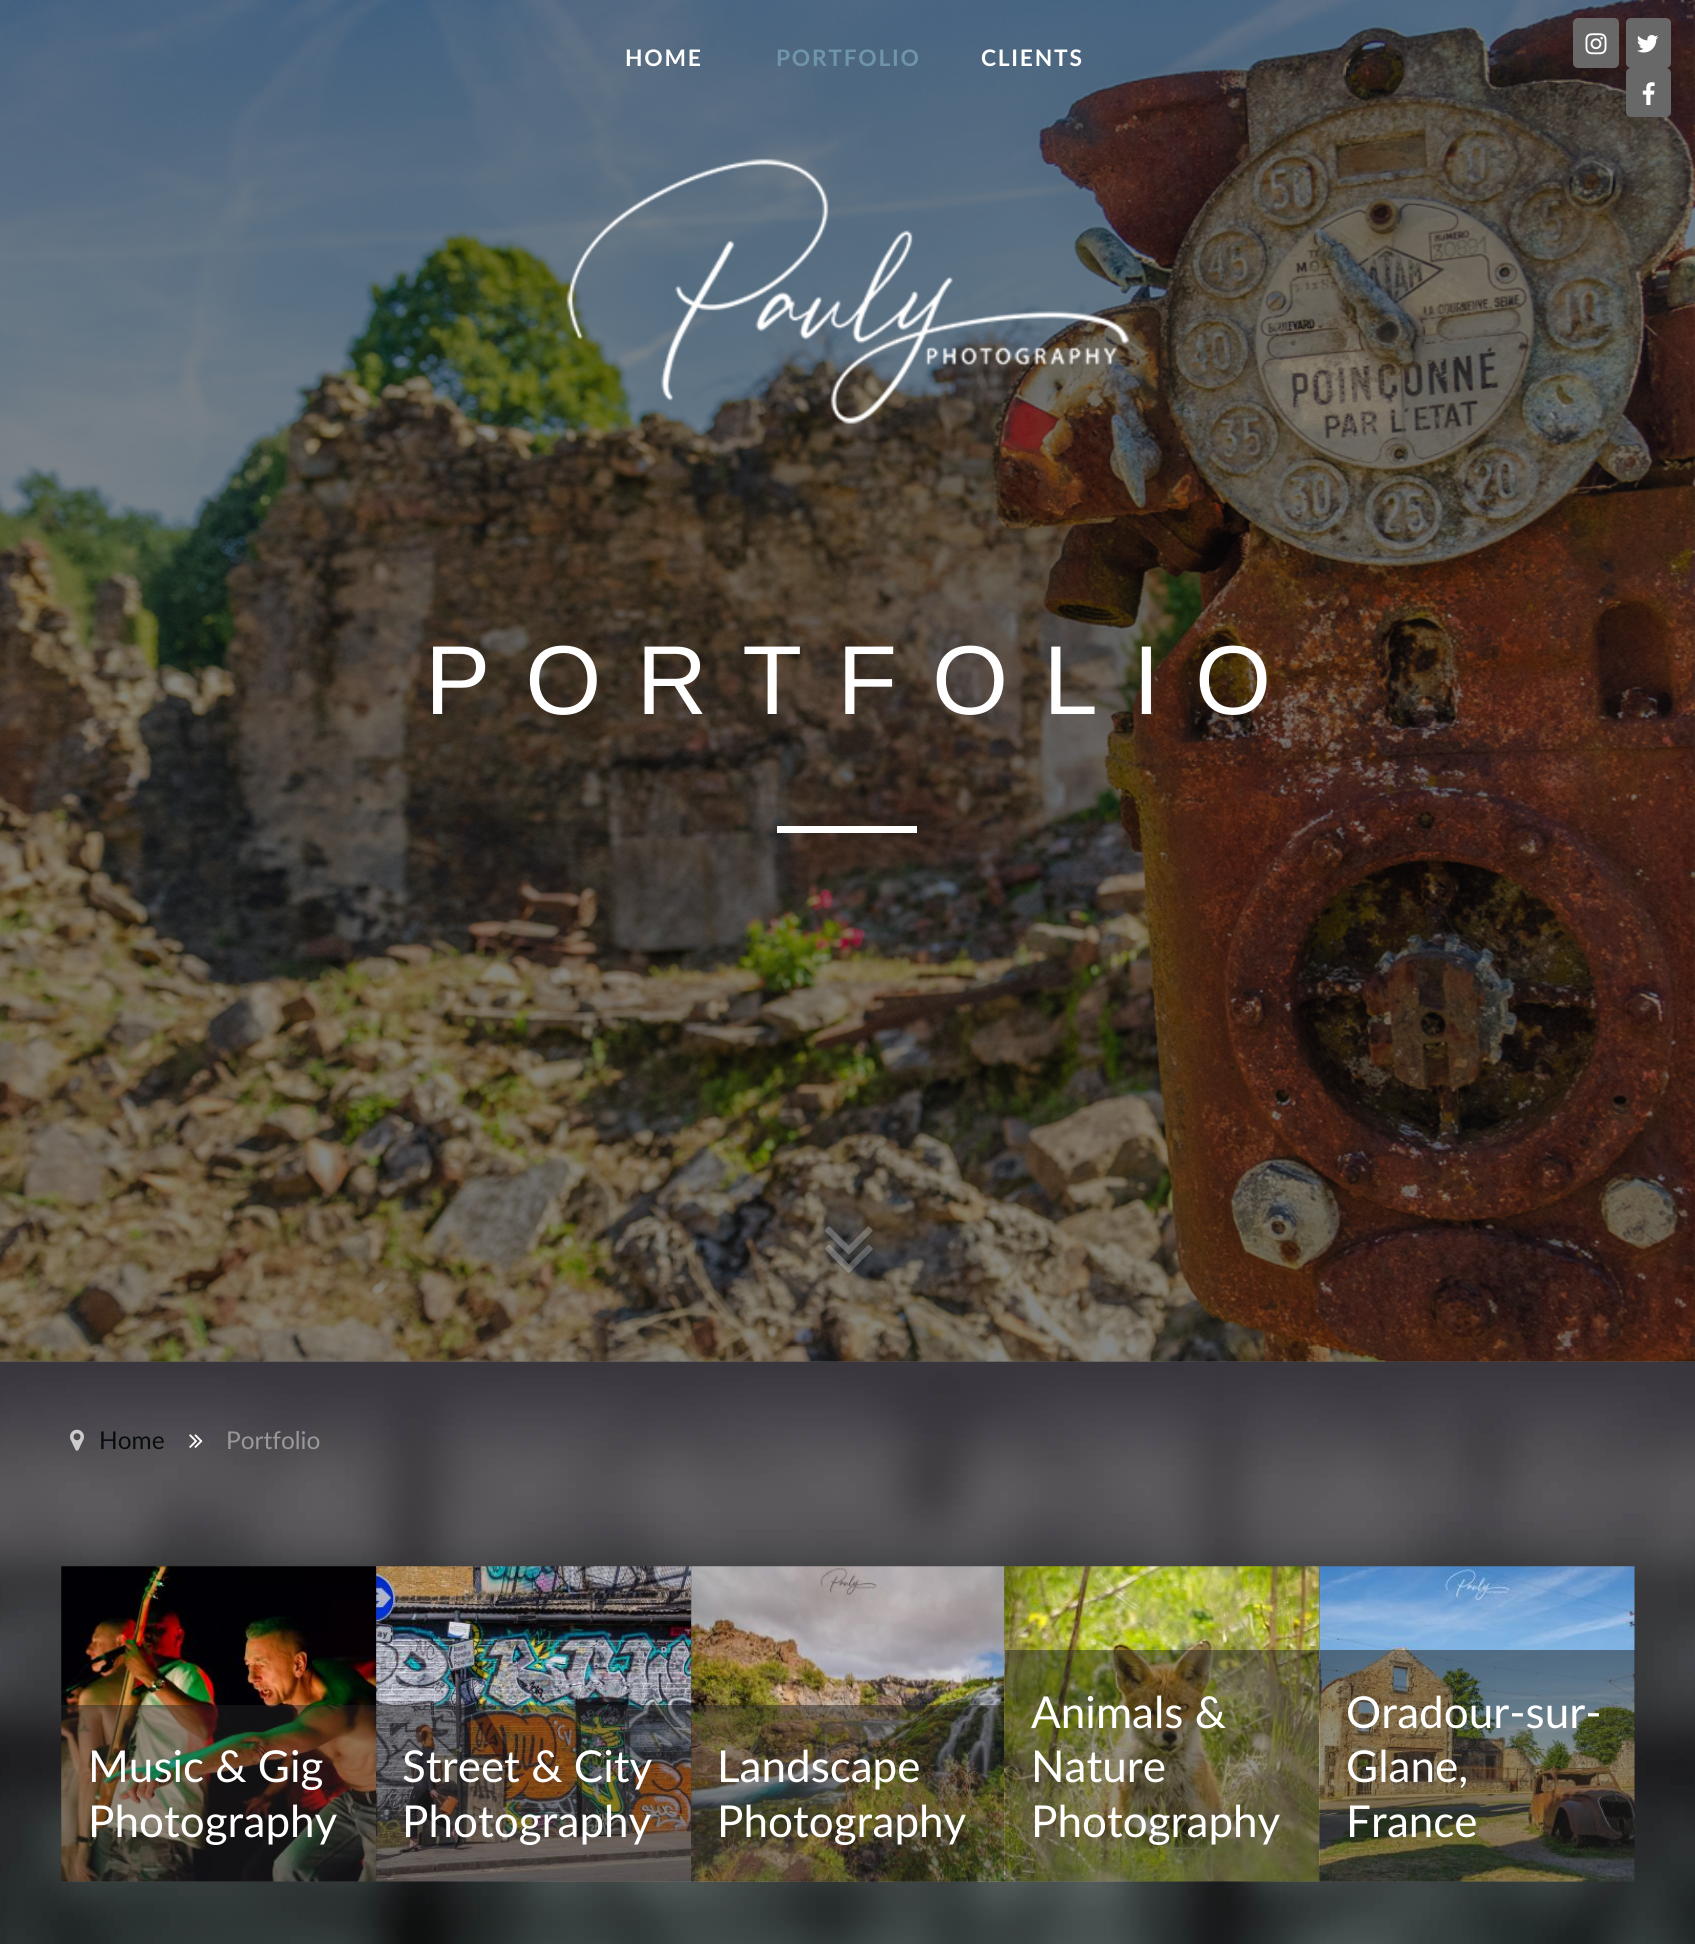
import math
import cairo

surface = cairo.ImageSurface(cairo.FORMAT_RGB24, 1695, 1944)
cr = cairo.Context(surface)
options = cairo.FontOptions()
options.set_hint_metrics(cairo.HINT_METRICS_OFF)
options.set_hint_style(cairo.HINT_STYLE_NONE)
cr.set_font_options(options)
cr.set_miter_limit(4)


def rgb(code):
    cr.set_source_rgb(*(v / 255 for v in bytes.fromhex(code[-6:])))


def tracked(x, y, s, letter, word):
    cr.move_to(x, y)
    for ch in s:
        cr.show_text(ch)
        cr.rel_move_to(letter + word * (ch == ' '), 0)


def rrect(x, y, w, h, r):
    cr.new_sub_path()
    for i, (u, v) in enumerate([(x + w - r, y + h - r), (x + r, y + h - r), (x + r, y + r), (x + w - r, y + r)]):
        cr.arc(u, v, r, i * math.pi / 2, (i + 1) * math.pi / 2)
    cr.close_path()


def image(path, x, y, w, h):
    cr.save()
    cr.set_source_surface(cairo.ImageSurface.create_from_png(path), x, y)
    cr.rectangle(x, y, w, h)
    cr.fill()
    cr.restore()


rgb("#ffffff")
cr.paint()
image("img/7.png", 0, 1361, 1695, 583)
image("img/5.png", 0, 0, 1695, 1362)
cr.set_source_rgba(0.035, 0.051, 0.059, 0.5)
cr.rectangle(0, 0, 1695, 1362)
cr.fill()
rgb("#686868")
rrect(1573, 18, 46, 50, 5)
cr.fill()
image("img/1.png", 1585, 33, 22, 22)
rrect(1626, 18, 45, 50, 5)
cr.fill()
image("img/2.png", 1637, 35, 22, 18)
rrect(1626, 68, 45, 49, 5)
cr.fill()
image("img/3.png", 1642, 82, 13, 23)
image("img/4.png", 566, 158, 564, 266)
rgb("#ffffff")
cr.rectangle(777, 826, 140, 7)
cr.fill()
image("img/6.png", 825, 1226, 48, 47)
image("img/8.png", 70, 1429, 14, 22)
image("img/9.png", 189, 1434, 14, 14)
image("img/10.png", 61, 1566, 316, 316)
cr.set_source_rgba(0.133, 0.133, 0.133, 0.5)
cr.rectangle(61, 1705, 315, 176)
cr.fill()
image("img/11.png", 376, 1566, 316, 316)
cr.rectangle(376, 1705, 315, 176)
cr.fill()
image("img/12.png", 691, 1566, 314, 316)
cr.rectangle(691, 1705, 314, 176)
cr.fill()
image("img/13.png", 1004, 1566, 316, 316)
cr.rectangle(1005, 1650, 315, 231)
cr.fill()
image("img/14.png", 1319, 1566, 316, 316)
cr.rectangle(1320, 1650, 315, 231)
cr.fill()
cr.select_font_face("Lato", cairo.FONT_SLANT_NORMAL, cairo.FONT_WEIGHT_BOLD)
cr.set_font_size(22.75)
rgb("#ffffff")
tracked(625, 66, "HOME", 1.75, 0)
rgb("#6f95a8")
tracked(776, 66, "PORTFOLIO", 1.75, 0)
rgb("#ffffff")
tracked(981, 66, "CLIENTS", 1.75, 0)
cr.select_font_face("Liberation Sans")
cr.set_font_size(98)
tracked(425, 714, "PORTFOLIO", 35, 0)
cr.select_font_face("Lato")
cr.set_font_size(24.5)
rgb("#090d0f")
cr.move_to(99, 1449)
cr.show_text("Home")
rgb("#999999")
cr.move_to(226, 1449)
cr.show_text("Portfolio")
cr.set_font_size(44)
rgb("#ffffff")
for x, y, s in [
    (88, 1782, "Music & Gig"),
    (88, 1837, "Photography"),
    (402, 1782, "Street & City"),
    (402, 1837, "Photography"),
    (717, 1782, "Landscape"),
    (717, 1837, "Photography"),
    (1031, 1728, "Animals &"),
    (1031, 1782, "Nature"),
    (1031, 1837, "Photography"),
    (1346, 1728, "Oradour-sur-"),
    (1346, 1782, "Glane,"),
    (1346, 1837, "France"),
]:
    cr.move_to(x, y)
    cr.show_text(s)
surface.write_to_png("page.png")
